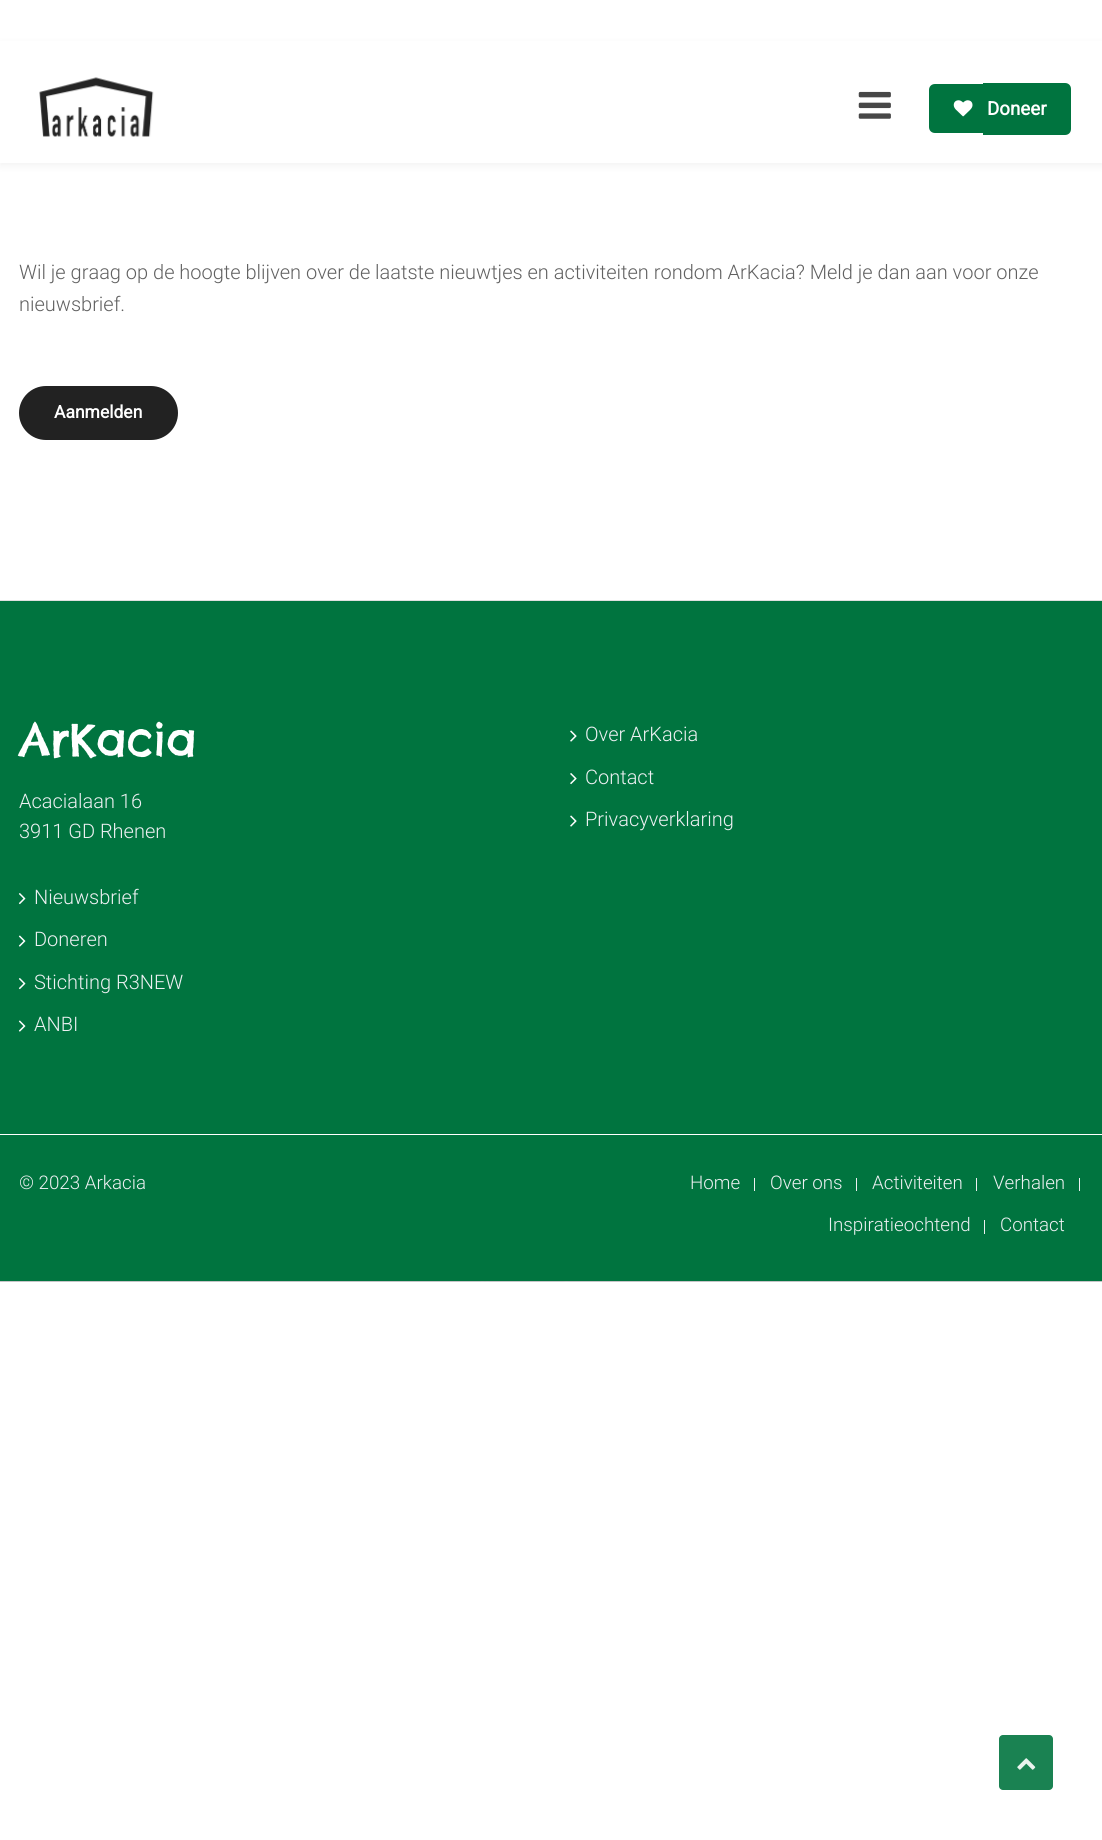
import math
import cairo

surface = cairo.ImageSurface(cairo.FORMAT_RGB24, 1102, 1840)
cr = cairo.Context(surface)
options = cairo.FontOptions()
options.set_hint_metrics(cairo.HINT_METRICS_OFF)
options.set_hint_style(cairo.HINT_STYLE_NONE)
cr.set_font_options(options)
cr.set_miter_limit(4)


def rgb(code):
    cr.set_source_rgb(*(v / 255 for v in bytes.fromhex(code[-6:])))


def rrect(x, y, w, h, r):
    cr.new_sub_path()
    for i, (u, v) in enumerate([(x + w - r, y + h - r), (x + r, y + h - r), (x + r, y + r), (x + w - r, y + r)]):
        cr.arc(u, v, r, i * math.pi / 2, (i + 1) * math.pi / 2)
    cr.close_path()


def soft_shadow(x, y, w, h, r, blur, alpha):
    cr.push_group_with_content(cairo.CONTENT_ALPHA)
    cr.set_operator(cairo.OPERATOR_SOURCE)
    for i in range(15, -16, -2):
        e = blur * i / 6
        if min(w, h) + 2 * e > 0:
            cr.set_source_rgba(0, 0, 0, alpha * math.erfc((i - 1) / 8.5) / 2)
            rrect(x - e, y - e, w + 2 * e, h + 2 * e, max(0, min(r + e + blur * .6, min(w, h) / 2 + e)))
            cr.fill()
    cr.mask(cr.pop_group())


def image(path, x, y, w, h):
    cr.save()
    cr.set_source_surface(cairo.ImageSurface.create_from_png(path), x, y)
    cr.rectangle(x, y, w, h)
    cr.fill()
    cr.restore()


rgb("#ffffff")
cr.paint()
rgb("#808080")
soft_shadow(0, 44, 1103, 122, 0, 4, 0.1)
rgb("#ffffff")
cr.rectangle(0, 41, 1102, 122)
cr.fill()
image("img/1.png", 39, 77, 115, 60)
image("img/2.png", 858, 91, 33, 28)
rgb("#00743f")
cr.new_path()
cr.move_to(935, 84)
cr.line_to(983, 84)
cr.line_to(983, 133)
cr.line_to(935, 133)
cr.curve_to(931.5, 133, 929, 130.5, 929, 127)
cr.line_to(929, 90)
cr.curve_to(929, 86.5, 931.5, 84, 935, 84)
cr.close_path()
cr.fill()
cr.new_path()
cr.move_to(983, 83)
cr.line_to(1065, 83)
cr.curve_to(1068.5, 83, 1071, 85.5, 1071, 89)
cr.line_to(1071, 129)
cr.curve_to(1071, 132.5, 1068.5, 135, 1065, 135)
cr.line_to(983, 135)
cr.close_path()
cr.fill()
image("img/3.png", 953, 100, 20, 17)
rgb("#222222")
rrect(19, 386, 159, 54, 27)
cr.fill()
image("img/4.png", 0, 1281, 1102, 1)
rgb("#00743f")
cr.rectangle(0, 601, 1102, 533)
cr.fill()
rgb("#e0e0e0")
cr.rectangle(0, 600, 1102, 1)
cr.fill()
image("img/5.png", 570, 730, 7, 12)
image("img/6.png", 570, 773, 7, 12)
image("img/5.png", 570, 815, 7, 12)
image("img/7.png", 18, 893, 8, 12)
image("img/8.png", 18, 935, 8, 12)
image("img/7.png", 18, 978, 8, 12)
image("img/8.png", 18, 1020, 8, 12)
for x, y, w, h, color in [
    (0, 1135, 1102, 146, "#00743f"),
    (754, 1178, 1, 13, "#edf0f2"),
    (856, 1178, 1, 13, "#edf0f2"),
    (976, 1178, 1, 13, "#edf0f2"),
    (1079, 1178, 1, 13, "#edf0f2"),
    (984, 1220, 1, 14, "#edf0f2"),
]:
    rgb(color)
    cr.rectangle(x, y, w, h)
    cr.fill()
rgb("#1a8252")
rrect(999, 1735, 54, 55, 4)
cr.fill()
image("img/9.png", 1017, 1758, 19, 12)
cr.select_font_face("Roboto", cairo.FONT_SLANT_NORMAL, cairo.FONT_WEIGHT_BOLD)
cr.set_font_size(18.75)
rgb("#ffffff")
cr.move_to(987, 115)
cr.show_text("Doneer")
cr.select_font_face("Roboto Light")
cr.set_font_size(20)
rgb("#616161")
cr.move_to(19, 279)
cr.show_text("Wil je graag op de hoogte blijven over de laatste nieuwtjes en activiteiten rondom ArKacia? Meld je dan aan voor onze")
cr.move_to(19, 311)
cr.show_text("nieuwsbrief.")
cr.select_font_face("Roboto", cairo.FONT_SLANT_NORMAL, cairo.FONT_WEIGHT_BOLD)
cr.set_font_size(17.5)
rgb("#ffffff")
cr.move_to(54, 418)
cr.show_text("Aanmelden")
cr.select_font_face("Chelsea Market")
cr.set_font_size(45)
cr.move_to(19, 756)
cr.show_text("ArKacia")
cr.select_font_face("Roboto Light")
cr.set_font_size(20)
rgb("#edf0f2")
for x, y, s in [
    (19, 808, "Acacialaan 16"),
    (19, 838, "3911 GD Rhenen"),
    (585, 741, "Over ArKacia"),
    (585, 784, "Contact"),
    (585, 826, "Privacyverklaring"),
    (34, 904, "Nieuwsbrief"),
    (34, 946, "Doneren"),
    (34, 989, "Stichting R3NEW"),
    (34, 1031, "ANBI"),
]:
    cr.move_to(x, y)
    cr.show_text(s)
cr.set_font_size(18.75)
for x, y, s in [
    (19, 1189, "© 2023 Arkacia"),
    (690, 1189, "Home"),
    (770, 1189, "Over ons"),
    (872, 1189, "Activiteiten"),
    (993, 1189, "Verhalen"),
    (828, 1231, "Inspiratieochtend"),
    (1000, 1231, "Contact"),
]:
    cr.move_to(x, y)
    cr.show_text(s)
surface.write_to_png("page.png")
